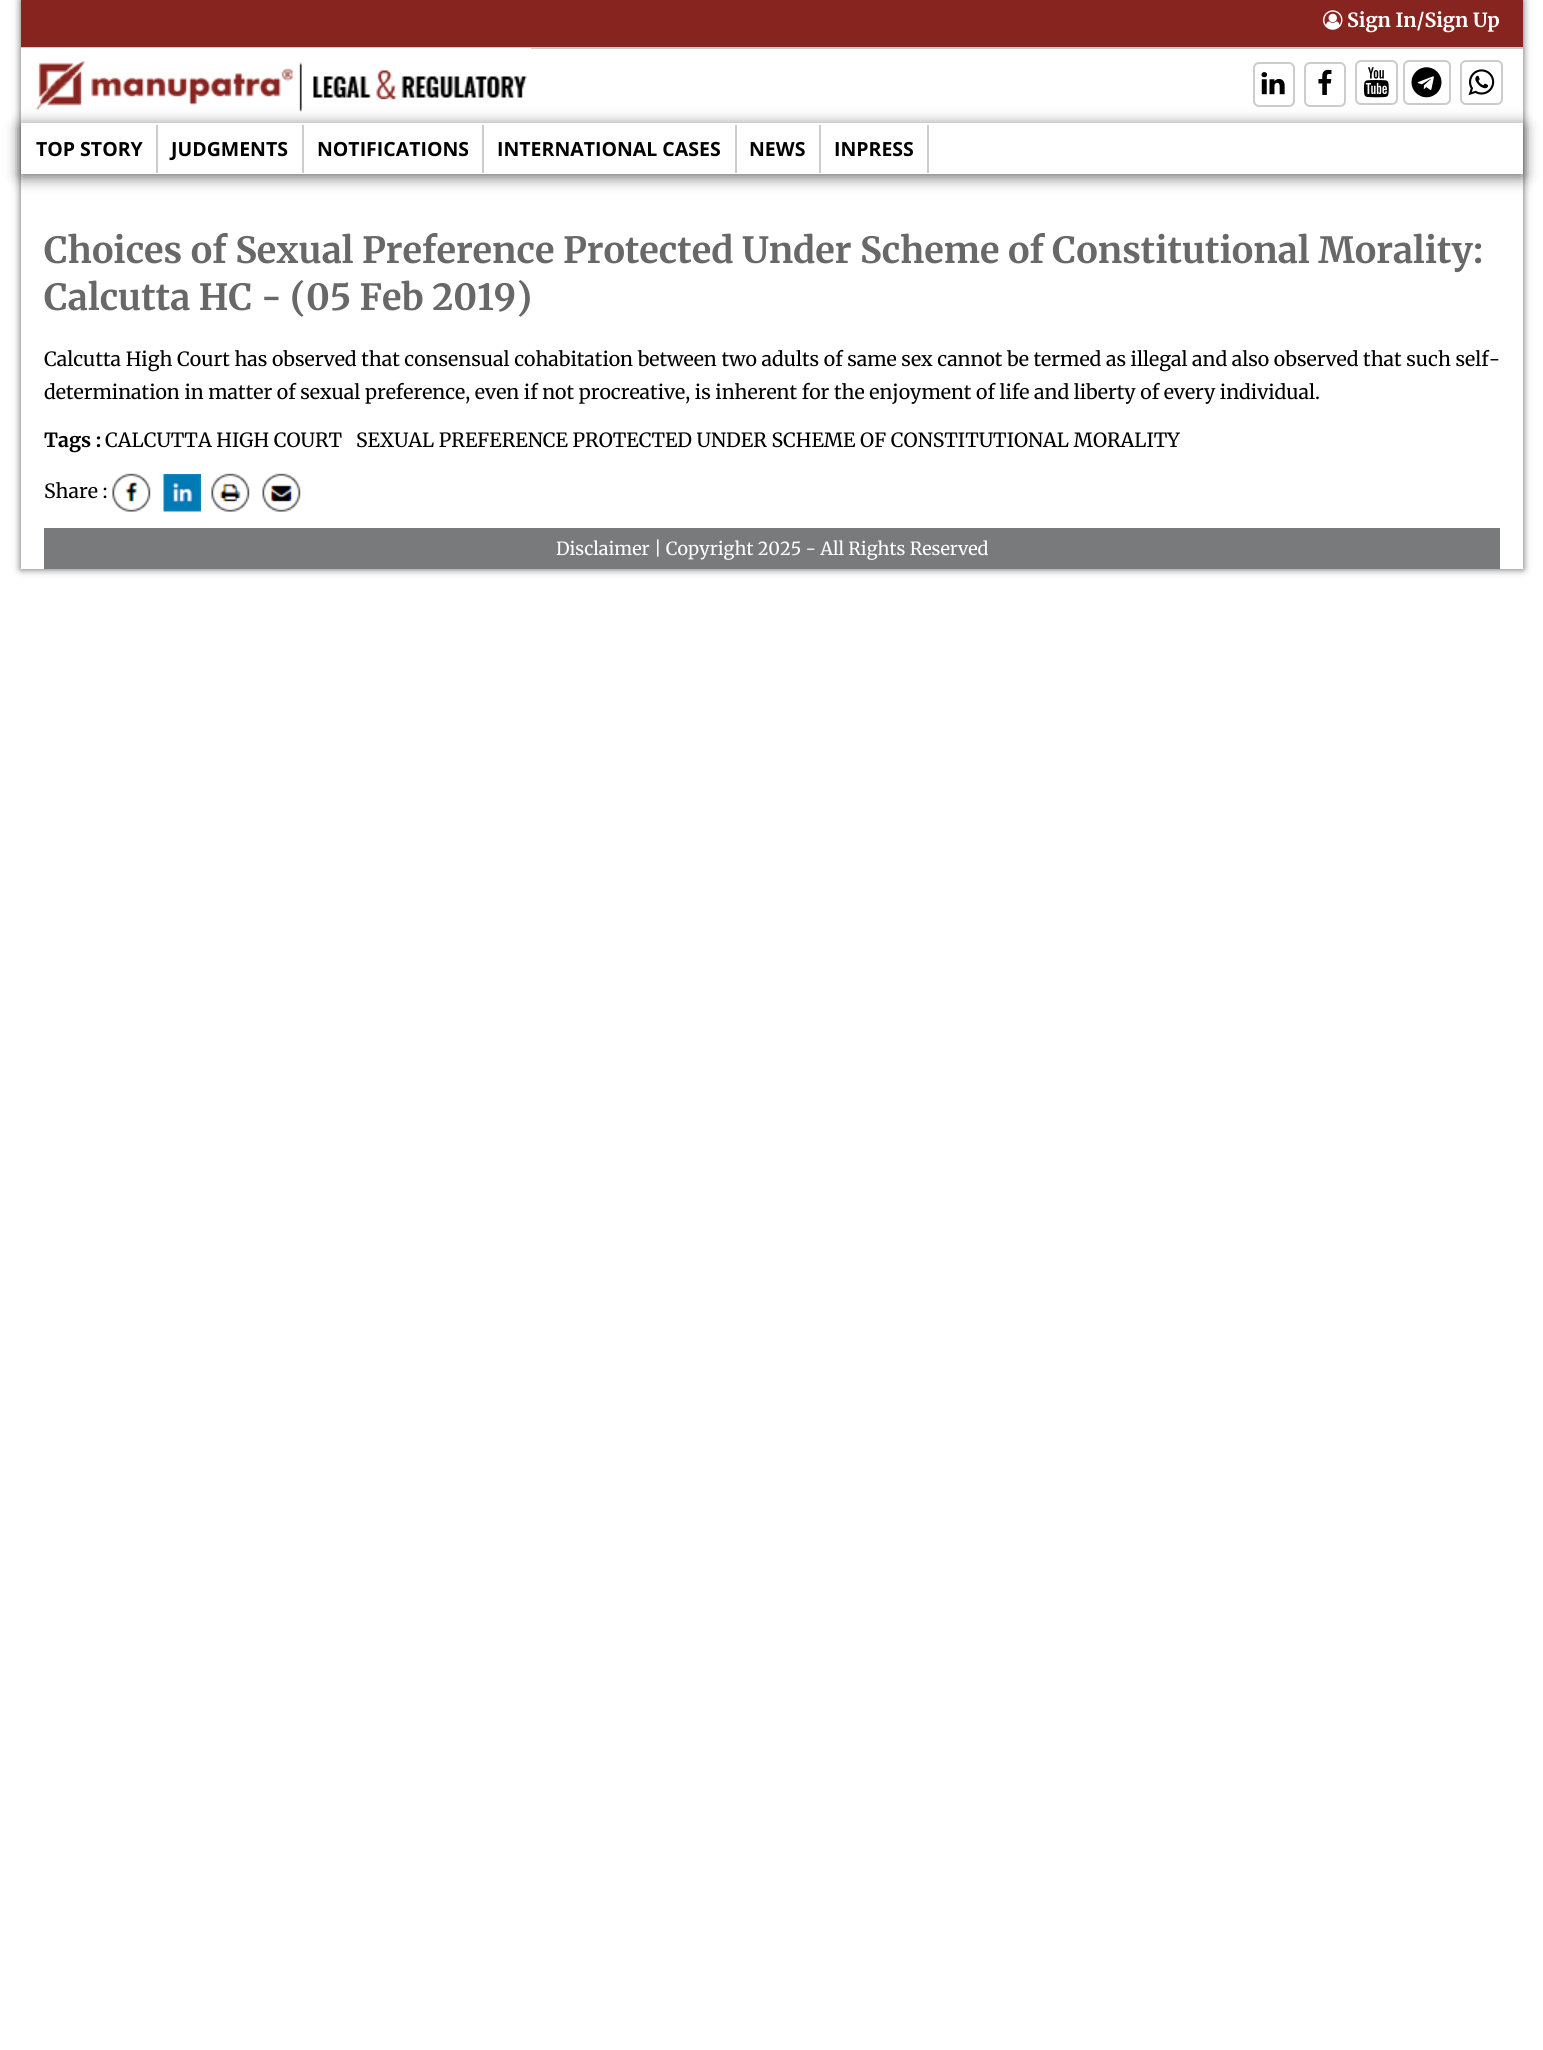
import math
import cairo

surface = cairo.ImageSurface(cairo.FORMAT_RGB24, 1543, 2050)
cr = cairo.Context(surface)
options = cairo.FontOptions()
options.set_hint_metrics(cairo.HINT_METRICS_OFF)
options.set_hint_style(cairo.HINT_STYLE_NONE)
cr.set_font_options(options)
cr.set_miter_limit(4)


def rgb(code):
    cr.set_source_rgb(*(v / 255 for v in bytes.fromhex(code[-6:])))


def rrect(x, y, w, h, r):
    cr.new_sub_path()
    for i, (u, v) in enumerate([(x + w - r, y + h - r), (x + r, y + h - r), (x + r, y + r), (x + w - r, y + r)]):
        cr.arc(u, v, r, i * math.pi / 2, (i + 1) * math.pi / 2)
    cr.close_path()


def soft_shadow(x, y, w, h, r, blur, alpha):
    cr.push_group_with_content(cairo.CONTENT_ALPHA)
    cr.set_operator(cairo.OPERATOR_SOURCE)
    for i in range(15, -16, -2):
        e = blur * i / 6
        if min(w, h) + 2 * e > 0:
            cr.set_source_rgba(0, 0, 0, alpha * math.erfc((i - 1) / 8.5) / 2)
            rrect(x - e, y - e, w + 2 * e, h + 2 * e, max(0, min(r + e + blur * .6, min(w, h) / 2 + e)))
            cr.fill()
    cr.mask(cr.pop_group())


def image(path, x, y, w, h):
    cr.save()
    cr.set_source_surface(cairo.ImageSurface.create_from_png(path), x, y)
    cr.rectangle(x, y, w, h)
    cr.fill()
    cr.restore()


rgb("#ffffff")
cr.paint()
cr.save()
cr.set_fill_rule(cairo.FILL_RULE_EVEN_ODD)
cr.new_path()
cr.move_to(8, 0)
cr.line_to(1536, 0)
cr.line_to(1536, 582)
cr.line_to(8, 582)
cr.close_path()
cr.move_to(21, 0)
cr.line_to(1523, 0)
cr.line_to(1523, 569)
cr.line_to(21, 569)
cr.close_path()
cr.clip()
rgb("#323232")
soft_shadow(21, 0, 1502, 569, 0, 4, 0.79)
cr.restore()
rgb("#88241f")
cr.rectangle(21, 0, 1502, 47)
cr.fill()
rgb("#cccccc")
cr.rectangle(21, 47, 1502, 2)
cr.fill()
image("img/1.png", 1323, 10, 20, 20)
image("img/2.png", 21, 48, 510, 64)
rrect(1254, 63, 40, 43, 5)
cr.stroke()
image("img/3.png", 1261, 72, 24, 23)
rrect(1305, 63, 40, 43, 5)
cr.stroke()
image("img/4.png", 1318, 69, 14, 26)
rrect(1356, 61, 41, 43, 5)
cr.stroke()
image("img/5.png", 1363, 67, 26, 31)
rrect(1404, 61, 46, 43, 5)
cr.stroke()
image("img/6.png", 1411, 67, 31, 31)
rrect(1461, 61, 41, 43, 5)
cr.stroke()
image("img/7.png", 1468, 69, 27, 27)
rgb("#323232")
soft_shadow(21, 126, 1502, 51, 0, 7.5, 0.75)
for x, y, w, h, color in [
    (21, 123, 1502, 51, "#ffffff"),
    (156, 125, 2, 48, "#cccccc"),
    (302, 125, 2, 48, "#cccccc"),
    (482, 125, 2, 48, "#cccccc"),
    (735, 125, 2, 48, "#cccccc"),
    (819, 125, 2, 48, "#cccccc"),
    (927, 125, 2, 48, "#cccccc"),
]:
    rgb(color)
    cr.rectangle(x, y, w, h)
    cr.fill()
image("img/8.png", 112, 473, 39, 39)
image("img/9.png", 163, 474, 38, 38)
image("img/10.png", 211, 473, 39, 39)
image("img/11.png", 262, 473, 39, 39)
rgb("#787a7c")
cr.rectangle(44, 528, 1456, 41)
cr.fill()
cr.select_font_face("Merriweather", cairo.FONT_SLANT_NORMAL, cairo.FONT_WEIGHT_BOLD)
cr.set_font_size(19.5)
rgb("#ffffff")
cr.move_to(1347, 27)
cr.show_text("Sign In/Sign Up")
cr.select_font_face("Open Sans", cairo.FONT_SLANT_NORMAL, cairo.FONT_WEIGHT_BOLD)
rgb("#000000")
for x, y, s in [
    (36, 156, "TOP STORY"),
    (171, 156, "JUDGMENTS"),
    (317, 156, "NOTIFICATIONS"),
    (497, 156, "INTERNATIONAL CASES"),
    (749, 156, "NEWS"),
    (834, 156, "INPRESS"),
]:
    cr.move_to(x, y)
    cr.show_text(s)
cr.select_font_face("Merriweather", cairo.FONT_SLANT_NORMAL, cairo.FONT_WEIGHT_BOLD)
cr.set_font_size(36)
rgb("#686868")
cr.move_to(44, 263)
cr.show_text("Choices of Sexual Preference Protected Under Scheme of Constitutional Morality:")
cr.move_to(44, 310)
cr.show_text("Calcutta HC - (05 Feb 2019)")
cr.select_font_face("Merriweather")
cr.set_font_size(19.5)
rgb("#000000")
cr.move_to(44, 366)
cr.show_text("Calcutta High Court has observed that consensual cohabitation between two adults of same sex cannot be termed as illegal and also observed that such self-")
cr.move_to(44, 399)
cr.show_text("determination in matter of sexual preference, even if not procreative, is inherent for the enjoyment of life and liberty of every individual.")
cr.select_font_face("Merriweather", cairo.FONT_SLANT_NORMAL, cairo.FONT_WEIGHT_BOLD)
cr.move_to(44, 447)
cr.show_text("Tags :")
cr.select_font_face("Merriweather")
for x, y, s in [
    (105, 447, "CALCUTTA HIGH COURT"),
    (356, 447, "SEXUAL PREFERENCE PROTECTED UNDER SCHEME OF CONSTITUTIONAL MORALITY"),
    (44, 498, "Share :"),
]:
    cr.move_to(x, y)
    cr.show_text(s)
cr.set_font_size(18)
rgb("#ffffff")
cr.move_to(556, 555)
cr.show_text("Disclaimer | Copyright 2025 - All Rights Reserved")
surface.write_to_png("page.png")
